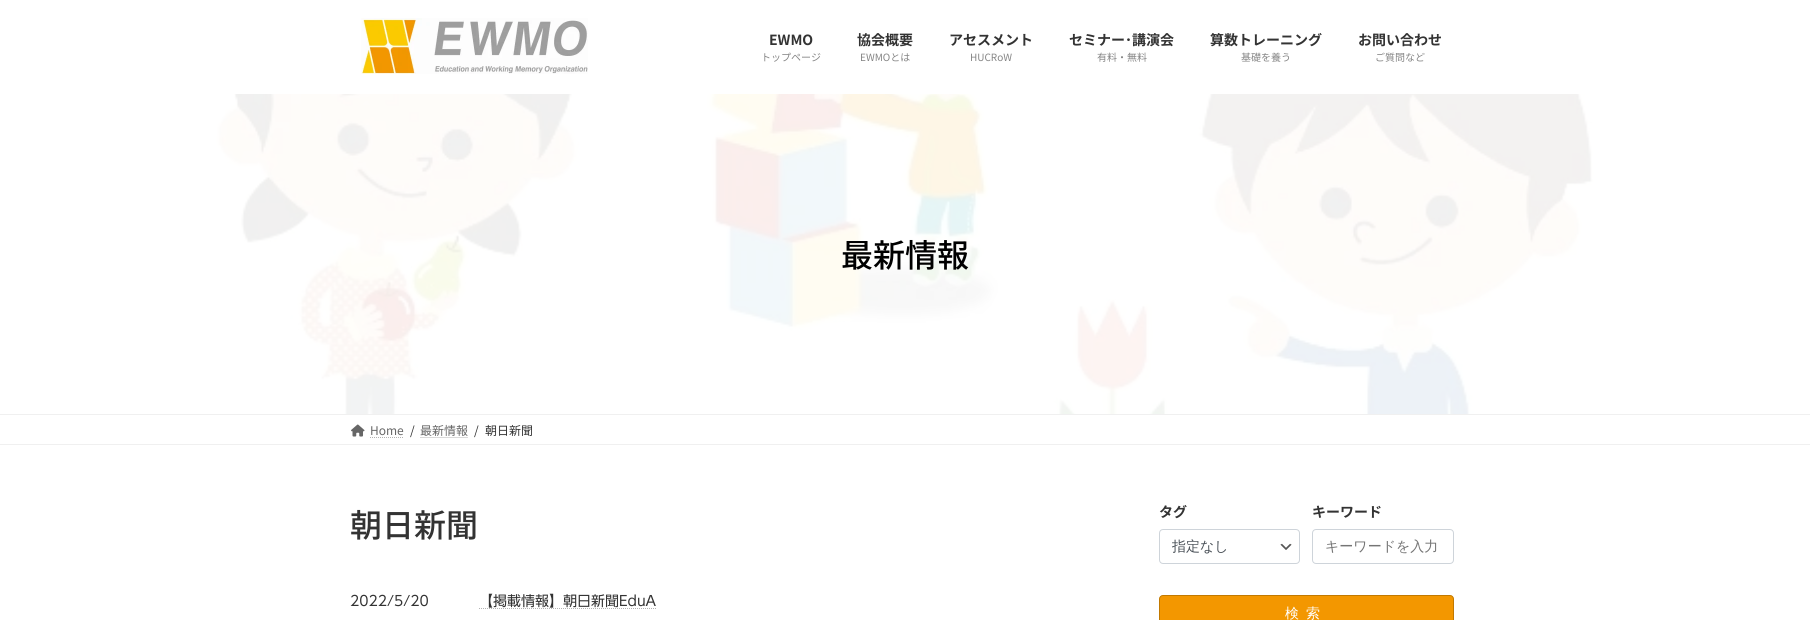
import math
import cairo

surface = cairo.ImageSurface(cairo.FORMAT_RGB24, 1810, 620)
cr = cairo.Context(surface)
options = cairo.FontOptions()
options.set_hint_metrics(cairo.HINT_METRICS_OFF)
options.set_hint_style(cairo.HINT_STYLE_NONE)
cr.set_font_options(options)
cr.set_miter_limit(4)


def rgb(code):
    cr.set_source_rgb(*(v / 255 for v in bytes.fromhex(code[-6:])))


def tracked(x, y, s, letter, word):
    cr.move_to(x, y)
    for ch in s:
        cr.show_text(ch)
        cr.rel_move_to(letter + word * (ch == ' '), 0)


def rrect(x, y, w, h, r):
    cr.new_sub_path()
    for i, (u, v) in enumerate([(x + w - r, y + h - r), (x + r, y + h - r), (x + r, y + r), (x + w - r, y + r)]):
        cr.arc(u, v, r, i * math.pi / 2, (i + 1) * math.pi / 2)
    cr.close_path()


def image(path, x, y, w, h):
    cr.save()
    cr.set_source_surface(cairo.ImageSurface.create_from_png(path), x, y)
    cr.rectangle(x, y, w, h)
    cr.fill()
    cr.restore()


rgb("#ffffff")
cr.paint()
image("img/1.png", 361, 18, 227, 56)
image("img/2.png", 216, 94, 1378, 320)
rgb("#f0f0f0")
cr.rectangle(0, 414, 1810, 1)
cr.fill()
cr.rectangle(0, 444, 1810, 1)
cr.fill()
image("img/3.png", 351, 424, 14, 13)
cr.new_path()
cr.move_to(370, 437.5)
cr.line_to(403.5, 437.5)
rgb("#b3b3b3")
cr.set_line_width(1)
cr.set_dash([1, 1])
cr.stroke()
cr.new_path()
cr.move_to(420.5, 437.5)
cr.line_to(468.5, 437.5)
cr.stroke()
cr.new_path()
cr.move_to(479, 608.5)
cr.line_to(656, 608.5)
cr.stroke()
image("img/4.png", 1280, 543, 12, 7)
rrect(1159.5, 529.5, 140, 34, 3.5)
rgb("#ced4da")
cr.set_dash([])
cr.stroke()
rrect(1312.5, 529.5, 141, 34, 3.5)
cr.stroke()
rgb("#f39700")
rrect(1159.5, 595.5, 294, 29, 3.5)
cr.fill_preserve()
rgb("#c27900")
cr.stroke()
cr.select_font_face("Noto Sans JP", cairo.FONT_SLANT_NORMAL, cairo.FONT_WEIGHT_BOLD)
cr.set_font_size(14)
rgb("#333333")
cr.move_to(769, 45)
cr.show_text("EWMO")
cr.select_font_face("Noto Sans JP")
cr.set_font_size(10)
rgb("#858585")
cr.move_to(761, 61)
cr.show_text("トップページ")
cr.select_font_face("Noto Sans JP", cairo.FONT_SLANT_NORMAL, cairo.FONT_WEIGHT_BOLD)
cr.set_font_size(14)
rgb("#333333")
cr.move_to(857, 45)
cr.show_text("協会概要")
cr.select_font_face("Noto Sans JP")
cr.set_font_size(10)
rgb("#858585")
cr.move_to(860, 61)
cr.show_text("EWMOとは")
cr.select_font_face("Noto Sans JP", cairo.FONT_SLANT_NORMAL, cairo.FONT_WEIGHT_BOLD)
cr.set_font_size(14)
rgb("#333333")
cr.move_to(949, 45)
cr.show_text("アセスメント")
cr.select_font_face("Noto Sans JP")
cr.set_font_size(10)
rgb("#858585")
cr.move_to(970, 61)
cr.show_text("HUCRoW")
cr.select_font_face("Noto Sans JP", cairo.FONT_SLANT_NORMAL, cairo.FONT_WEIGHT_BOLD)
cr.set_font_size(14)
rgb("#333333")
cr.move_to(1069, 45)
cr.show_text("セミナー･講演会")
cr.select_font_face("Noto Sans JP")
cr.set_font_size(10)
rgb("#858585")
cr.move_to(1097, 61)
cr.show_text("有料・無料")
cr.select_font_face("Noto Sans JP", cairo.FONT_SLANT_NORMAL, cairo.FONT_WEIGHT_BOLD)
cr.set_font_size(14)
rgb("#333333")
cr.move_to(1210, 45)
cr.show_text("算数トレーニング")
cr.select_font_face("Noto Sans JP")
cr.set_font_size(10)
rgb("#858585")
cr.move_to(1241, 61)
cr.show_text("基礎を養う")
cr.select_font_face("Noto Sans JP", cairo.FONT_SLANT_NORMAL, cairo.FONT_WEIGHT_BOLD)
cr.set_font_size(14)
rgb("#333333")
cr.move_to(1358, 45)
cr.show_text("お問い合わせ")
cr.select_font_face("Noto Sans JP")
cr.set_font_size(10)
rgb("#858585")
cr.move_to(1375, 61)
cr.show_text("ご質問など")
cr.select_font_face("Noto Sans JP Medium")
cr.set_font_size(32)
rgb("#000000")
cr.move_to(841, 267)
cr.show_text("最新情報")
cr.select_font_face("Noto Sans JP")
cr.set_font_size(12)
rgb("#666666")
cr.move_to(370, 435)
cr.show_text("Home")
rgb("#333333")
cr.move_to(410, 435)
cr.show_text("/")
rgb("#666666")
cr.move_to(420, 435)
cr.show_text("最新情報")
rgb("#333333")
cr.move_to(474, 435)
cr.show_text("/")
cr.move_to(485, 435)
cr.show_text("朝日新聞")
cr.select_font_face("Noto Sans JP Medium")
cr.set_font_size(32)
cr.move_to(350, 537)
cr.show_text("朝日新聞")
cr.select_font_face("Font")
cr.set_font_size(14)
cr.move_to(350, 606)
cr.show_text("2022/5/20")
cr.move_to(479, 606)
cr.show_text("【掲載情報】朝日新聞EduA")
cr.select_font_face("Noto Sans JP", cairo.FONT_SLANT_NORMAL, cairo.FONT_WEIGHT_BOLD)
cr.move_to(1159, 517)
cr.show_text("タグ")
cr.select_font_face("WenQuanYi Zen Hei Medium")
rgb("#495057")
cr.move_to(1172, 551)
cr.show_text("指定なし")
cr.select_font_face("Noto Sans JP", cairo.FONT_SLANT_NORMAL, cairo.FONT_WEIGHT_BOLD)
rgb("#333333")
cr.move_to(1312, 517)
cr.show_text("キーワード")
cr.select_font_face("WenQuanYi Zen Hei Medium")
rgb("#757575")
cr.move_to(1325, 551)
cr.show_text("キーワードを入力")
rgb("#ffffff")
tracked(1285, 618, "検索", 7, 0)
surface.write_to_png("page.png")
